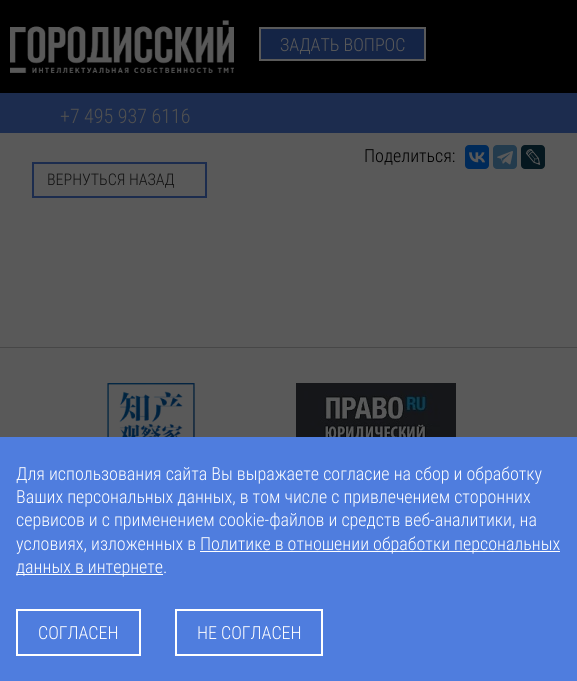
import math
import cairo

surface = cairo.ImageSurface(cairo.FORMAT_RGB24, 577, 681)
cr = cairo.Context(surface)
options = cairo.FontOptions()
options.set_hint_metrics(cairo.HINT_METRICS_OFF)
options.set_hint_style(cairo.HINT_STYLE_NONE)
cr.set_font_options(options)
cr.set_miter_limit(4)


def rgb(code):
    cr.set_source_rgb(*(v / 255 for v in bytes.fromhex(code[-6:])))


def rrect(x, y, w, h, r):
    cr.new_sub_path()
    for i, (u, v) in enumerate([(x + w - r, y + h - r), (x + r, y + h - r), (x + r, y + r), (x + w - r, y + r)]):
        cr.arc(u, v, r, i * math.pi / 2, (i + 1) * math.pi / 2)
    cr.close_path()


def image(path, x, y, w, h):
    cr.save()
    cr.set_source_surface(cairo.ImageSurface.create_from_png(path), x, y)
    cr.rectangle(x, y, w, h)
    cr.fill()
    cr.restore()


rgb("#595959")
cr.paint()
rgb("#000000")
cr.rectangle(0, 0, 577, 93)
cr.fill()
image("img/1.png", 10, 20, 224, 53)
rgb("#142445")
cr.rectangle(260, 28, 165, 32)
cr.fill_preserve()
rgb("#595959")
cr.stroke()
rgb("#1c2c4e")
cr.rectangle(0, 93, 577, 40)
cr.fill()
rgb("#002a59")
rrect(465, 145, 24, 24, 4)
cr.fill()
image("img/2.png", 469, 152, 16, 11)
rgb("#233b4d")
rrect(493, 145, 24, 24, 4)
cr.fill()
image("img/3.png", 497, 151, 16, 14)
rgb("#05171f")
rrect(521, 145, 24, 24, 4)
cr.fill()
image("img/4.png", 526, 149, 15, 16)
cr.rectangle(33, 163, 173, 34)
rgb("#1c2c4e")
cr.stroke()
for x, y, w, h, color in [
    (0, 437, 577, 244, "#4f7dde"),
    (200, 551, 360, 1, "#ffffff"),
    (16, 574, 147, 1, "#ffffff"),
]:
    rgb(color)
    cr.rectangle(x, y, w, h)
    cr.fill()
cr.rectangle(17, 610, 123, 45)
cr.stroke()
cr.rectangle(176, 610, 146, 45)
cr.stroke()
rgb("#474747")
cr.rectangle(0, 347, 577, 1)
cr.fill()
image("img/5.png", 107, 383, 88, 54)
image("img/6.png", 296, 383, 160, 54)
cr.select_font_face("Roboto Condensed Light")
cr.set_font_size(18)
rgb("#595959")
cr.move_to(280, 51)
cr.show_text("ЗАДАТЬ ВОПРОС")
cr.set_font_size(20)
rgb("#505050")
cr.move_to(60, 123)
cr.show_text("+7 495 937 6116")
cr.set_font_size(18)
rgb("#000000")
cr.move_to(364, 162)
cr.show_text("Поделиться:")
cr.set_font_size(16)
rgb("#121212")
cr.move_to(47, 185)
cr.show_text("ВЕРНУТЬСЯ НАЗАД")
cr.set_font_size(18)
rgb("#ffffff")
for x, y, s in [
    (16, 480, "Для использования сайта Вы выражаете согласие на сбор и обработку"),
    (16, 503, "Ваших персональных данных, в том числе с привлечением сторонних"),
    (16, 526, "сервисов и с применением cookie-файлов и средств веб-аналитики, на"),
    (16, 550, "условиях, изложенных в"),
    (200, 550, "Политике в отношении обработки персональных"),
    (16, 573, "данных в интернете."),
    (38, 639, "СОГЛАСЕН"),
    (197, 639, "НЕ СОГЛАСЕН"),
]:
    cr.move_to(x, y)
    cr.show_text(s)
surface.write_to_png("page.png")
